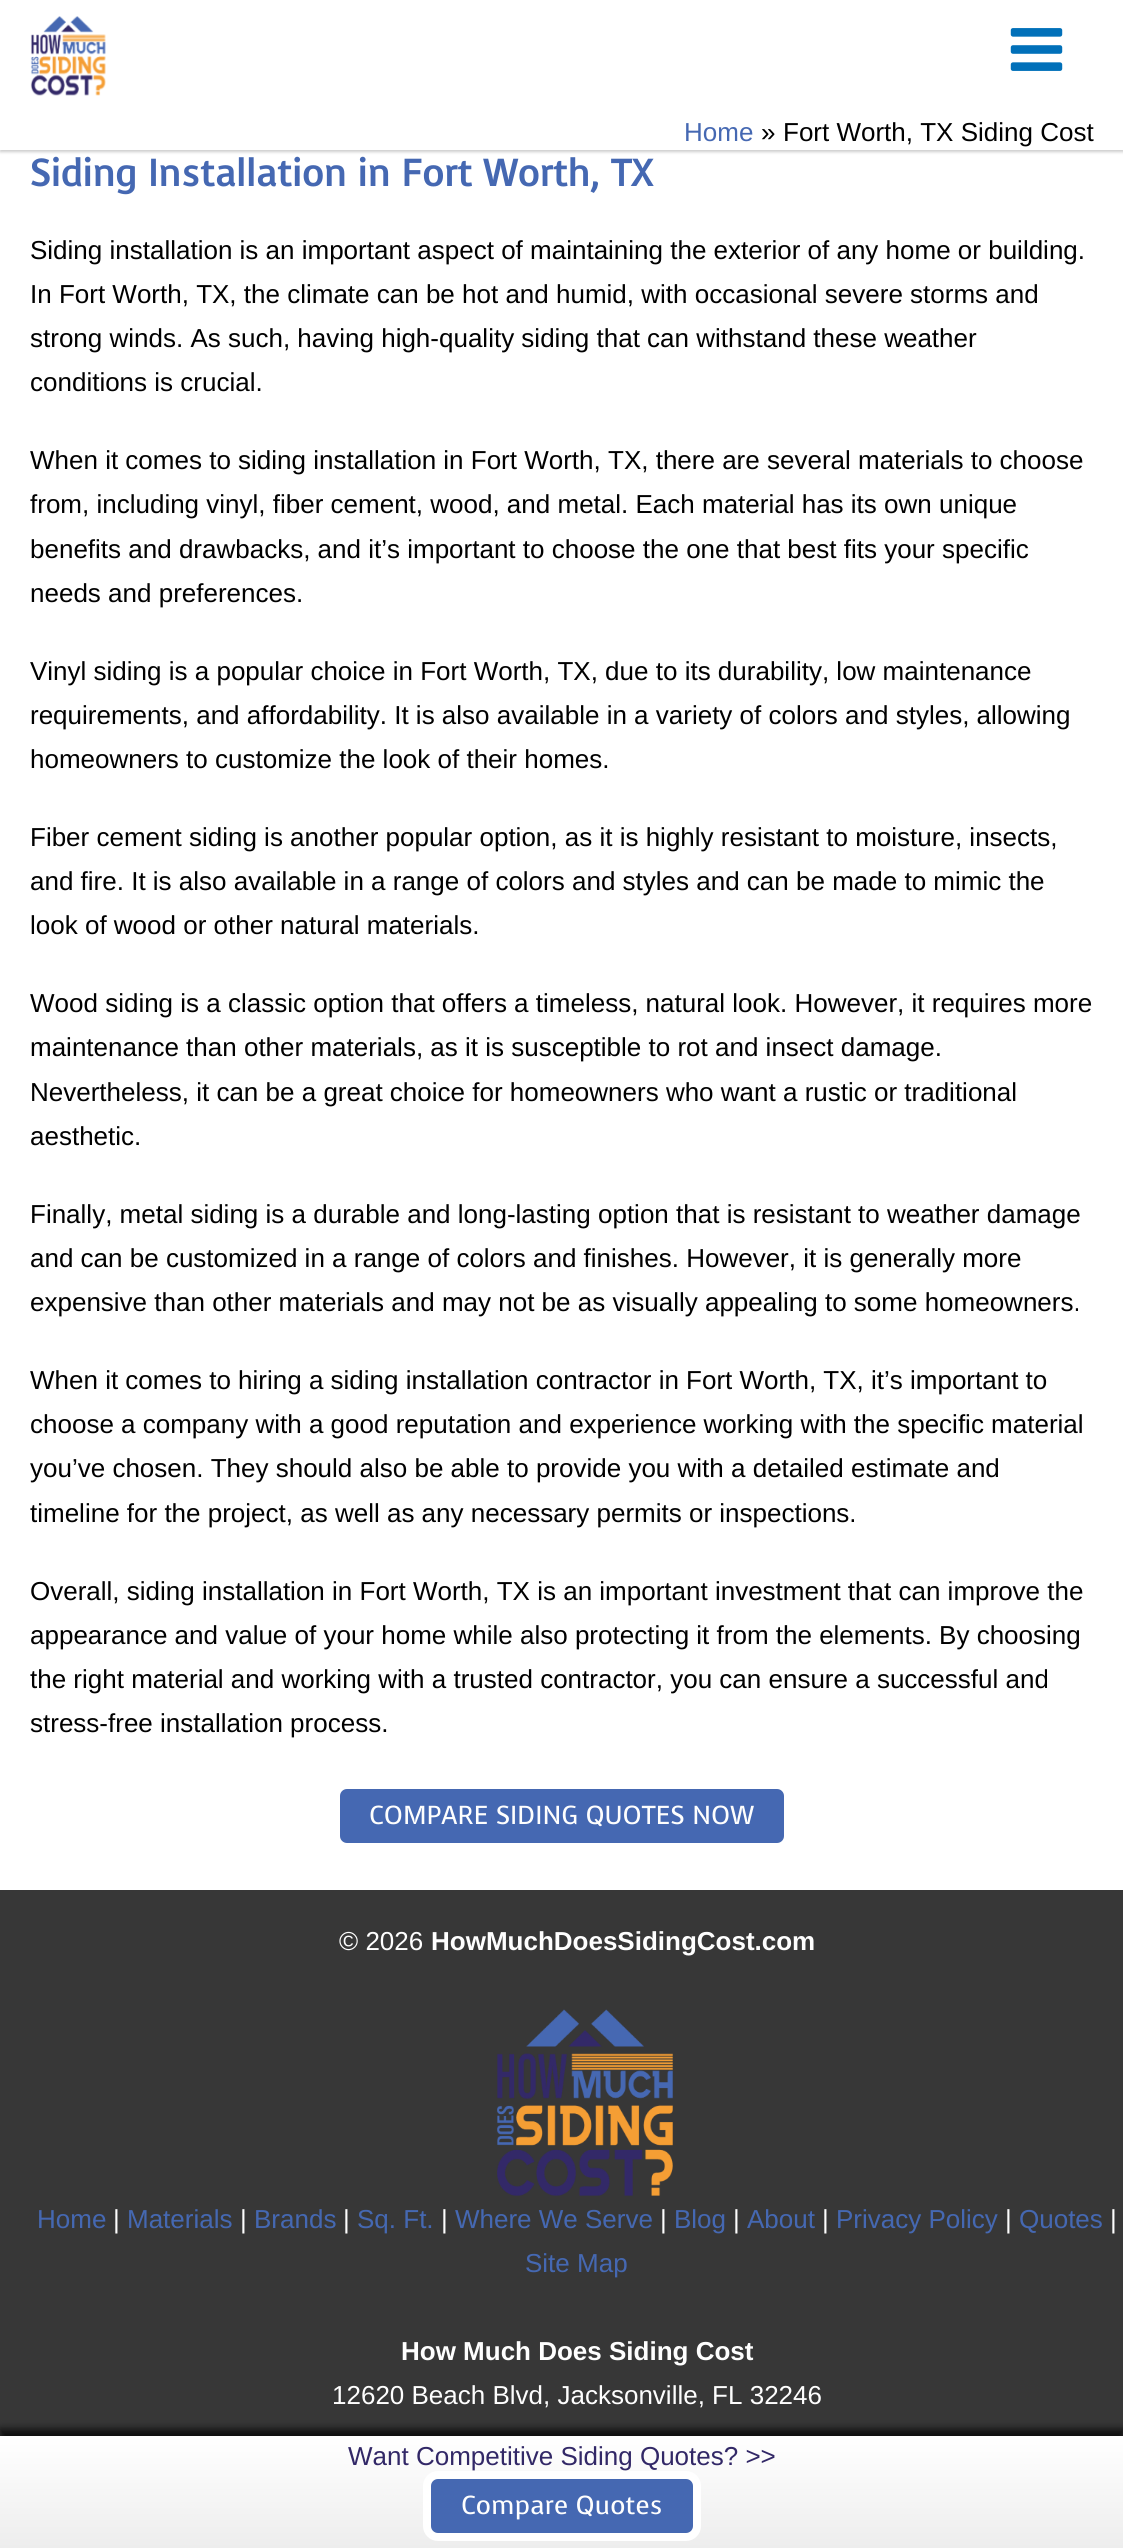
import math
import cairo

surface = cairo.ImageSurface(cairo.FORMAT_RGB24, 1123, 2548)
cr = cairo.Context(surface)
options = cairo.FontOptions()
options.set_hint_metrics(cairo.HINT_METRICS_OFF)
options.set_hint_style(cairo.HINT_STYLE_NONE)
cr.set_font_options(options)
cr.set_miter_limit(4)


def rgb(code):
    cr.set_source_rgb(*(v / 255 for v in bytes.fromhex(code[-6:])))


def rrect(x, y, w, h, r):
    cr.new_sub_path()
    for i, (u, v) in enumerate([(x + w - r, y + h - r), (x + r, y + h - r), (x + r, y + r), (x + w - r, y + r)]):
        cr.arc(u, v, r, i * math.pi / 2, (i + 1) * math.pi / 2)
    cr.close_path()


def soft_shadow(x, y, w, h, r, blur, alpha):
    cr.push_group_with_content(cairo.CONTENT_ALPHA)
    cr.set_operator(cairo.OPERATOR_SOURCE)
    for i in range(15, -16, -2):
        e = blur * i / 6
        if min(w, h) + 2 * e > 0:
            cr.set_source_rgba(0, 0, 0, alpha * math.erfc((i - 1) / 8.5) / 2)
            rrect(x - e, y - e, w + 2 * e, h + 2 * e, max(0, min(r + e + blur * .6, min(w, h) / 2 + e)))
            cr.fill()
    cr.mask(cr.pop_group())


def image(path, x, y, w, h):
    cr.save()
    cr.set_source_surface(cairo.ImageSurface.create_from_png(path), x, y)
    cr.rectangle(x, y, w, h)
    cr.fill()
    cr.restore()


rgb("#ffffff")
cr.paint()
rgb("#000000")
soft_shadow(0, 2, 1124, 150, 0, 1.5, 0.2)
rgb("#ffffff")
cr.rectangle(0, 0, 1123, 150)
cr.fill()
image("img/1.png", 30, 16, 76, 80)
image("img/2.png", 1010, 28, 53, 43)
rgb("#4568b2")
rrect(336, 1785, 452, 62, 11)
cr.fill_preserve()
rgb("#ffffff")
cr.set_line_width(8)
cr.stroke()
rgb("#373737")
cr.rectangle(0, 1890, 1123, 546)
cr.fill()
image("img/3.png", 497, 2009, 176, 187)
rgb("#000000")
soft_shadow(0, 2429, 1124, 112, 0, 4, 0.75)
gradient = cairo.LinearGradient(562, 2436, 562, 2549)
gradient.add_color_stop_rgba(0, 1, 1, 1, 1)
gradient.add_color_stop_rgba(1, 0.929, 0.929, 0.929, 1)
cr.set_source(gradient)
cr.rectangle(0, 2436, 1123, 112)
cr.fill()
rgb("#4568b2")
rrect(427, 2475, 270, 62, 11)
cr.fill_preserve()
rgb("#ffffff")
cr.stroke()
cr.select_font_face("Liberation Sans")
cr.set_font_size(26)
rgb("#4568b2")
cr.move_to(684, 141)
cr.show_text("Home")
rgb("#000000")
cr.move_to(761, 141)
cr.show_text("»")
cr.move_to(783, 141)
cr.show_text("Fort Worth, TX Siding Cost")
cr.select_font_face("Voces", cairo.FONT_SLANT_NORMAL, cairo.FONT_WEIGHT_BOLD)
cr.set_font_size(37.5)
rgb("#4568b2")
cr.move_to(30, 186)
cr.show_text("Siding Installation in Fort Worth, TX")
cr.select_font_face("Liberation Sans")
cr.set_font_size(26)
rgb("#000000")
for x, y, s in [
    (30, 259, "Siding installation is an important aspect of maintaining the exterior of any home or building."),
    (30, 303, "In Fort Worth, TX, the climate can be hot and humid, with occasional severe storms and"),
    (30, 347, "strong winds. As such, having high-quality siding that can withstand these weather"),
    (30, 391, "conditions is crucial."),
    (30, 469, "When it comes to siding installation in Fort Worth, TX, there are several materials to choose"),
    (30, 513, "from, including vinyl, fiber cement, wood, and metal. Each material has its own unique"),
    (30, 558, "benefits and drawbacks, and it’s important to choose the one that best fits your specific"),
    (30, 602, "needs and preferences."),
    (30, 680, "Vinyl siding is a popular choice in Fort Worth, TX, due to its durability, low maintenance"),
    (30, 724, "requirements, and affordability. It is also available in a variety of colors and styles, allowing"),
    (30, 768, "homeowners to customize the look of their homes."),
    (30, 846, "Fiber cement siding is another popular option, as it is highly resistant to moisture, insects,"),
    (30, 890, "and fire. It is also available in a range of colors and styles and can be made to mimic the"),
    (30, 934, "look of wood or other natural materials."),
    (30, 1012, "Wood siding is a classic option that offers a timeless, natural look. However, it requires more"),
    (30, 1056, "maintenance than other materials, as it is susceptible to rot and insect damage."),
    (30, 1101, "Nevertheless, it can be a great choice for homeowners who want a rustic or traditional"),
    (30, 1145, "aesthetic."),
    (30, 1223, "Finally, metal siding is a durable and long-lasting option that is resistant to weather damage"),
    (30, 1267, "and can be customized in a range of colors and finishes. However, it is generally more"),
    (30, 1311, "expensive than other materials and may not be as visually appealing to some homeowners."),
    (30, 1389, "When it comes to hiring a siding installation contractor in Fort Worth, TX, it’s important to"),
    (30, 1433, "choose a company with a good reputation and experience working with the specific material"),
    (30, 1477, "you’ve chosen. They should also be able to provide you with a detailed estimate and"),
    (30, 1522, "timeline for the project, as well as any necessary permits or inspections."),
    (30, 1600, "Overall, siding installation in Fort Worth, TX is an important investment that can improve the"),
    (30, 1644, "appearance and value of your home while also protecting it from the elements. By choosing"),
    (30, 1688, "the right material and working with a trusted contractor, you can ensure a successful and"),
    (30, 1732, "stress-free installation process."),
]:
    cr.move_to(x, y)
    cr.show_text(s)
cr.select_font_face("Voces")
rgb("#fefefe")
cr.move_to(369, 1824)
cr.show_text("COMPARE SIDING QUOTES NOW")
cr.select_font_face("Liberation Sans")
cr.move_to(339, 1950)
cr.show_text("© 2026")
cr.select_font_face("Liberation Sans", cairo.FONT_SLANT_NORMAL, cairo.FONT_WEIGHT_BOLD)
cr.move_to(431, 1950)
cr.show_text("HowMuchDoesSidingCost.com")
cr.select_font_face("Liberation Sans")
rgb("#4568b2")
cr.move_to(37, 2228)
cr.show_text("Home")
rgb("#fefefe")
cr.move_to(113, 2228)
cr.show_text("|")
rgb("#4568b2")
cr.move_to(127, 2228)
cr.show_text("Materials")
rgb("#fefefe")
cr.move_to(240, 2228)
cr.show_text("|")
rgb("#4568b2")
cr.move_to(254, 2228)
cr.show_text("Brands")
rgb("#fefefe")
cr.move_to(343, 2228)
cr.show_text("|")
rgb("#4568b2")
cr.move_to(357, 2228)
cr.show_text("Sq. Ft.")
rgb("#fefefe")
cr.move_to(441, 2228)
cr.show_text("|")
rgb("#4568b2")
cr.move_to(455, 2228)
cr.show_text("Where We Serve")
rgb("#fefefe")
cr.move_to(660, 2228)
cr.show_text("|")
rgb("#4568b2")
cr.move_to(674, 2228)
cr.show_text("Blog")
rgb("#fefefe")
cr.move_to(733, 2228)
cr.show_text("|")
rgb("#4568b2")
cr.move_to(747, 2228)
cr.show_text("About")
rgb("#fefefe")
cr.move_to(822, 2228)
cr.show_text("|")
rgb("#4568b2")
cr.move_to(836, 2228)
cr.show_text("Privacy Policy")
rgb("#fefefe")
cr.move_to(1005, 2228)
cr.show_text("|")
rgb("#4568b2")
cr.move_to(1019, 2228)
cr.show_text("Quotes")
rgb("#fefefe")
cr.move_to(1110, 2228)
cr.show_text("|")
rgb("#4568b2")
cr.move_to(525, 2272)
cr.show_text("Site Map")
cr.select_font_face("Liberation Sans", cairo.FONT_SLANT_NORMAL, cairo.FONT_WEIGHT_BOLD)
rgb("#fefefe")
cr.move_to(401, 2360)
cr.show_text("How Much Does Siding Cost")
cr.select_font_face("Liberation Sans")
cr.move_to(332, 2404)
cr.show_text("12620 Beach Blvd, Jacksonville, FL 32246")
rgb("#322867")
cr.move_to(348, 2465)
cr.show_text("Want Competitive Siding Quotes? >>")
cr.select_font_face("Voces")
rgb("#fefefe")
cr.move_to(461, 2514)
cr.show_text("Compare Quotes")
surface.write_to_png("page.png")
